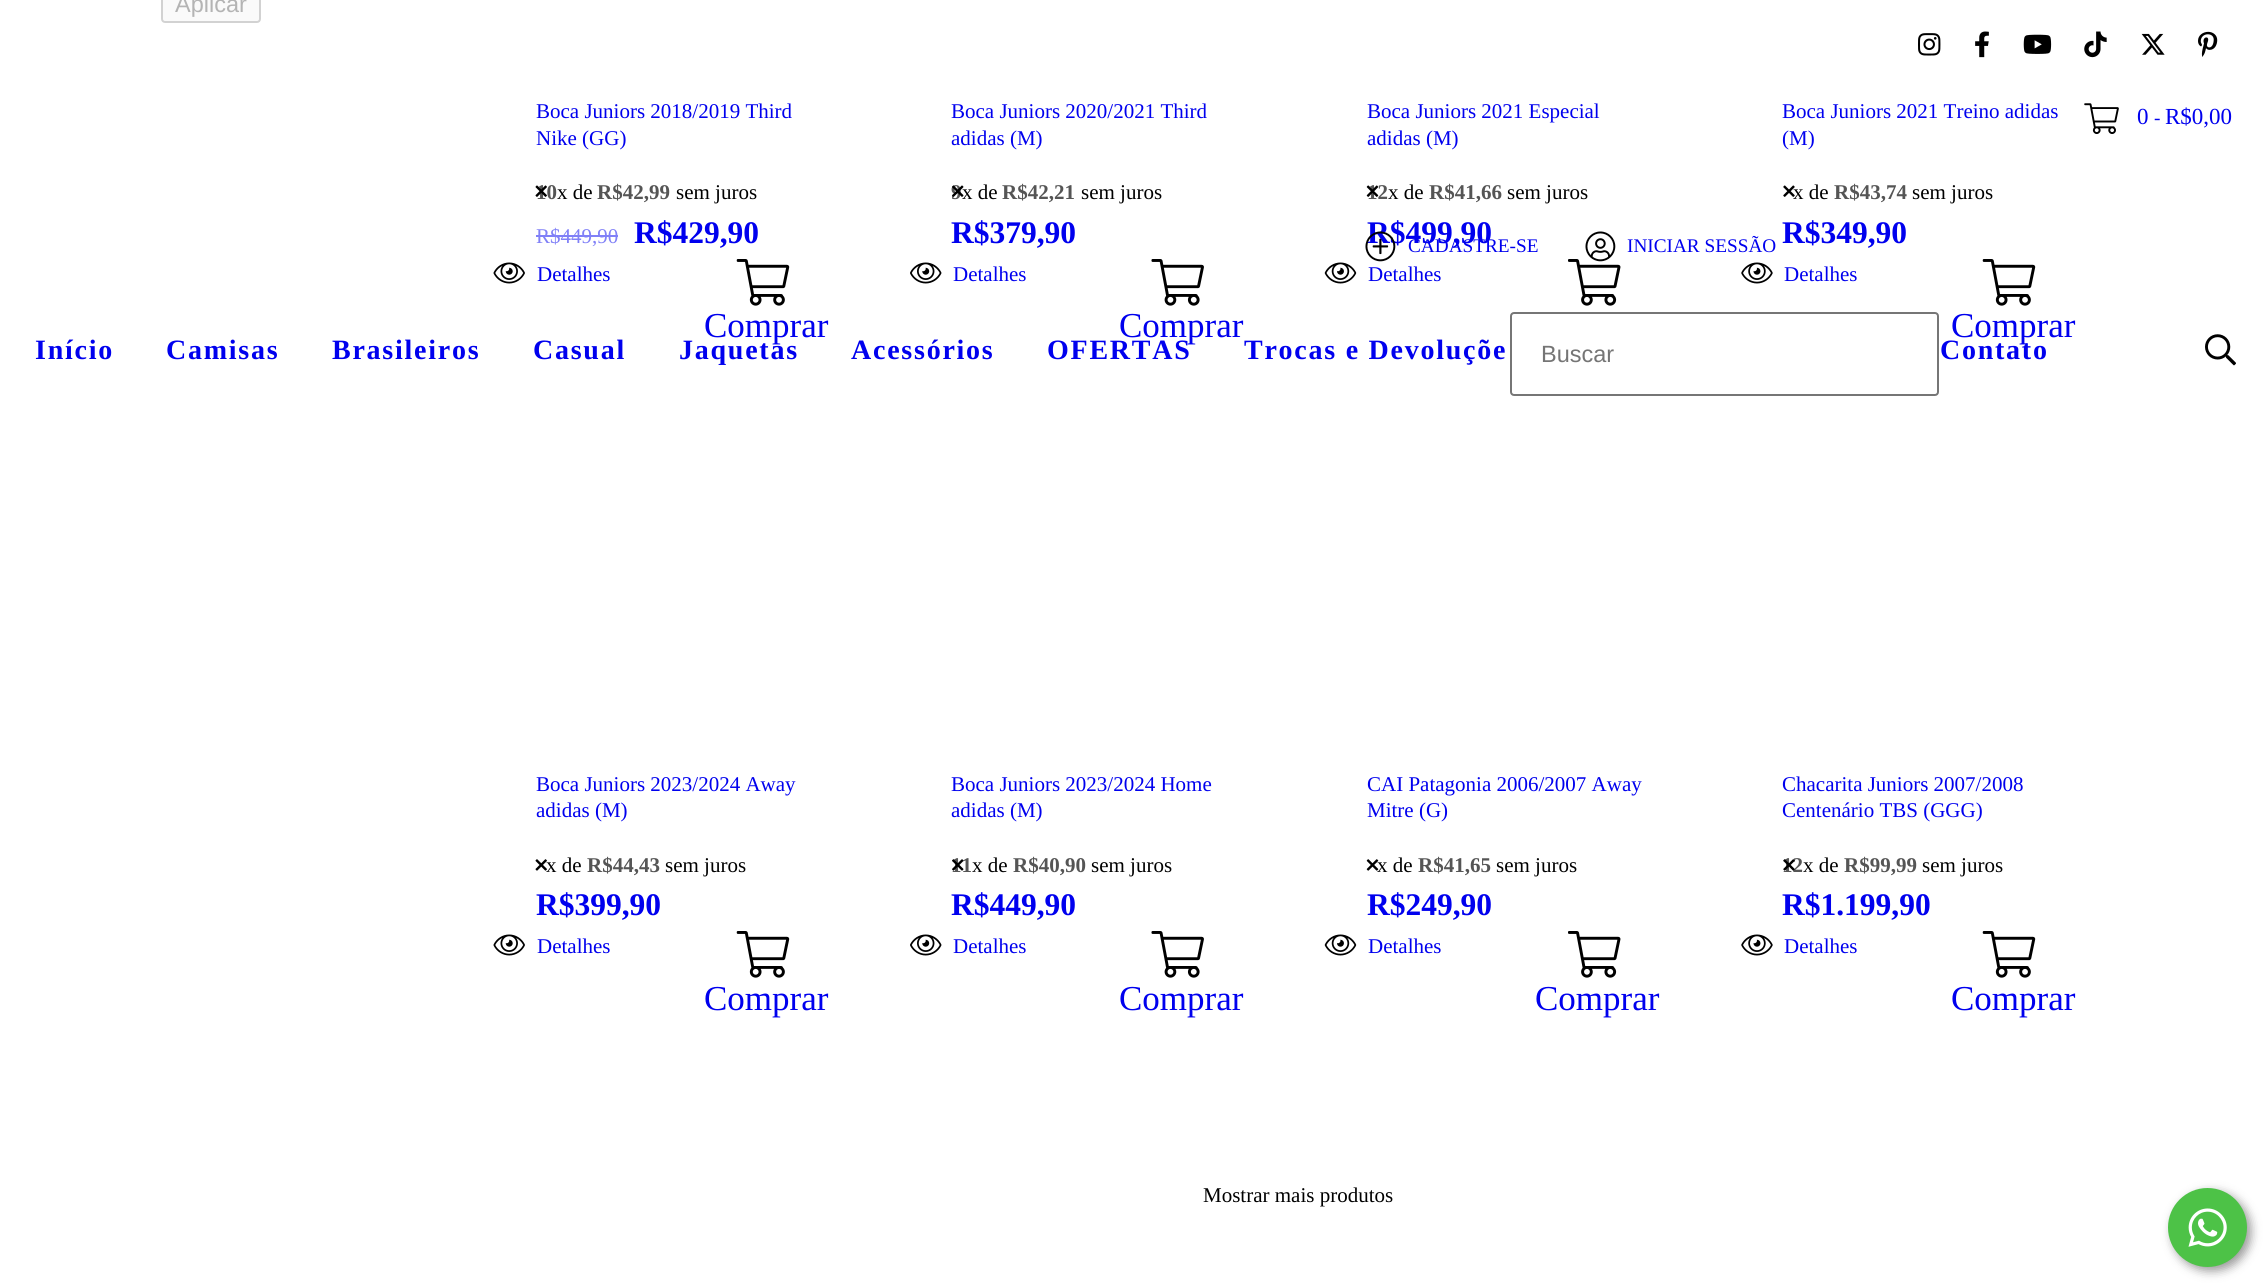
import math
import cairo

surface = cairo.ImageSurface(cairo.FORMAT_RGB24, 2263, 1283)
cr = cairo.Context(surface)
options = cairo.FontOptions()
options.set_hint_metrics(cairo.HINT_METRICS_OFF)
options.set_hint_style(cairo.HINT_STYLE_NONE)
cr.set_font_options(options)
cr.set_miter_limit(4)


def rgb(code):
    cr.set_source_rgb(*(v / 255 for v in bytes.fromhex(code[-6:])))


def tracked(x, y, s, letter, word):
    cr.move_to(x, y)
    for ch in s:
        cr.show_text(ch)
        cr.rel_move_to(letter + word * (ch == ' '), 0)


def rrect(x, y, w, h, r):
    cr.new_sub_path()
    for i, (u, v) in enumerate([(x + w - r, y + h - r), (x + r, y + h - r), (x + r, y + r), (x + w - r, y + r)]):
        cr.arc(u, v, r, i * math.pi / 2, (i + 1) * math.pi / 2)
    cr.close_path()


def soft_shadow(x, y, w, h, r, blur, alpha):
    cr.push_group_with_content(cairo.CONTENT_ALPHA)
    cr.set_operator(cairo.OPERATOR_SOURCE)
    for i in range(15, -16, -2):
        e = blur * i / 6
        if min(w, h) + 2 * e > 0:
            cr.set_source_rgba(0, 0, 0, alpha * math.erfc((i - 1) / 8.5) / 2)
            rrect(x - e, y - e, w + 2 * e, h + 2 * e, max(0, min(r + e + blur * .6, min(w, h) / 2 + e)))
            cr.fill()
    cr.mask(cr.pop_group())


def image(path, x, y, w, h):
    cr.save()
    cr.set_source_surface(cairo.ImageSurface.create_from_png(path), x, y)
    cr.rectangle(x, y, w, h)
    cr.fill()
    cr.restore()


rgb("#ffffff")
cr.paint()
rgb("#fafafa")
rrect(162, -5, 98, 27, 3)
cr.fill_preserve()
rgb("#d2d2d2")
cr.stroke()
rgb("#8080f7")
cr.rectangle(536, 235, 82, 2)
cr.fill()
image("img/2.png", 493, 262, 32, 22)
image("img/3.png", 736, 259, 54, 47)
image("img/5.png", 910, 262, 32, 22)
image("img/6.png", 1151, 259, 53, 47)
image("img/8.png", 1324, 262, 33, 22)
image("img/9.png", 1568, 259, 53, 47)
image("img/11.png", 1741, 262, 32, 22)
image("img/3.png", 1982, 259, 54, 47)
image("img/13.png", 493, 934, 32, 22)
image("img/3.png", 736, 931, 54, 47)
image("img/15.png", 910, 934, 32, 22)
image("img/6.png", 1151, 931, 53, 47)
image("img/17.png", 1324, 934, 33, 22)
image("img/9.png", 1568, 931, 53, 47)
image("img/19.png", 1741, 934, 32, 22)
image("img/3.png", 1982, 931, 54, 47)
image("img/20.png", 1918, 33, 23, 23)
image("img/21.png", 1975, 31, 14, 27)
image("img/22.png", 2023, 34, 29, 20)
image("img/23.png", 2084, 31, 23, 27)
image("img/24.png", 2141, 33, 24, 22)
image("img/25.png", 2198, 31, 20, 26)
image("img/26.png", 2084, 103, 35, 31)
image("img/28.png", 1585, 231, 31, 31)
rrect(1511, 313, 427, 82, 3)
rgb("#767676")
cr.stroke()
image("img/29.png", 2205, 334, 31, 32)
rgb("#000000")
soft_shadow(2172, 1192, 79, 79, 39.5, 5, 0.4)
rgb("#4dc247")
cr.arc(2207.5, 1227.5, 39.5, 0, 2 * math.pi)
cr.fill()
image("img/30.png", 2188, 1208, 39, 39)
cr.select_font_face("Liberation Sans")
cr.set_font_size(23.5)
rgb("#b4b4b4")
cr.move_to(175, 12)
cr.show_text("Aplicar")
cr.select_font_face("Liberation Serif")
cr.set_font_size(21)
rgb("#0000ee")
cr.move_to(536, 118)
cr.show_text("Boca Juniors 2018/2019 Third")
cr.move_to(536, 145)
cr.show_text("Nike (GG)")
cr.select_font_face("Liberation Serif", cairo.FONT_SLANT_NORMAL, cairo.FONT_WEIGHT_BOLD)
rgb("#555555")
cr.move_to(536, 199)
cr.show_text("10")
cr.select_font_face("Liberation Serif")
rgb("#000000")
cr.move_to(557, 199)
cr.show_text("x de")
cr.select_font_face("Liberation Serif", cairo.FONT_SLANT_NORMAL, cairo.FONT_WEIGHT_BOLD)
rgb("#555555")
cr.move_to(597, 199)
cr.show_text("R$42,99")
cr.select_font_face("Liberation Serif")
rgb("#000000")
cr.move_to(676, 199)
cr.show_text("sem juros")
rgb("#8080f7")
cr.move_to(536, 243)
cr.show_text("R$449,90")
cr.select_font_face("Liberation Serif", cairo.FONT_SLANT_NORMAL, cairo.FONT_WEIGHT_BOLD)
cr.set_font_size(31.5)
rgb("#0000ee")
cr.move_to(634, 243)
cr.show_text("R$429,90")
image("img/1.png", 535, 185, 12, 12)
cr.select_font_face("Liberation Serif")
cr.set_font_size(21)
cr.move_to(537, 281)
cr.show_text("Detalhes")
cr.set_font_size(35)
cr.move_to(704, 337)
cr.show_text("Comprar")
cr.set_font_size(21)
cr.move_to(951, 118)
cr.show_text("Boca Juniors 2020/2021 Third")
cr.move_to(951, 145)
cr.show_text("adidas (M)")
cr.select_font_face("Liberation Serif", cairo.FONT_SLANT_NORMAL, cairo.FONT_WEIGHT_BOLD)
rgb("#555555")
cr.move_to(951, 199)
cr.show_text("9")
cr.select_font_face("Liberation Serif")
rgb("#000000")
cr.move_to(962, 199)
cr.show_text("x de")
cr.select_font_face("Liberation Serif", cairo.FONT_SLANT_NORMAL, cairo.FONT_WEIGHT_BOLD)
rgb("#555555")
cr.move_to(1002, 199)
cr.show_text("R$42,21")
cr.select_font_face("Liberation Serif")
rgb("#000000")
cr.move_to(1081, 199)
cr.show_text("sem juros")
cr.select_font_face("Liberation Serif", cairo.FONT_SLANT_NORMAL, cairo.FONT_WEIGHT_BOLD)
cr.set_font_size(31.5)
rgb("#0000ee")
cr.move_to(951, 243)
cr.show_text("R$379,90")
image("img/4.png", 952, 185, 12, 12)
cr.select_font_face("Liberation Serif")
cr.set_font_size(21)
cr.move_to(953, 281)
cr.show_text("Detalhes")
cr.set_font_size(35)
cr.move_to(1119, 337)
cr.show_text("Comprar")
cr.set_font_size(21)
cr.move_to(1367, 118)
cr.show_text("Boca Juniors 2021 Especial")
cr.move_to(1367, 145)
cr.show_text("adidas (M)")
cr.select_font_face("Liberation Serif", cairo.FONT_SLANT_NORMAL, cairo.FONT_WEIGHT_BOLD)
rgb("#555555")
cr.move_to(1367, 199)
cr.show_text("12")
cr.select_font_face("Liberation Serif")
rgb("#000000")
cr.move_to(1388, 199)
cr.show_text("x de")
cr.select_font_face("Liberation Serif", cairo.FONT_SLANT_NORMAL, cairo.FONT_WEIGHT_BOLD)
rgb("#555555")
cr.move_to(1429, 199)
cr.show_text("R$41,66")
cr.select_font_face("Liberation Serif")
rgb("#000000")
cr.move_to(1507, 199)
cr.show_text("sem juros")
cr.select_font_face("Liberation Serif", cairo.FONT_SLANT_NORMAL, cairo.FONT_WEIGHT_BOLD)
cr.set_font_size(31.5)
rgb("#0000ee")
cr.move_to(1367, 243)
cr.show_text("R$499,90")
image("img/7.png", 1366, 185, 13, 12)
cr.select_font_face("Liberation Serif")
cr.set_font_size(21)
for x, y, s in [
    (1368, 281, "Detalhes"),
    (1782, 118, "Boca Juniors 2021 Treino adidas"),
    (1782, 145, "(M)"),
]:
    cr.move_to(x, y)
    cr.show_text(s)
rgb("#000000")
cr.move_to(1793, 199)
cr.show_text("x de")
cr.select_font_face("Liberation Serif", cairo.FONT_SLANT_NORMAL, cairo.FONT_WEIGHT_BOLD)
rgb("#555555")
cr.move_to(1834, 199)
cr.show_text("R$43,74")
cr.select_font_face("Liberation Serif")
rgb("#000000")
cr.move_to(1912, 199)
cr.show_text("sem juros")
cr.select_font_face("Liberation Serif", cairo.FONT_SLANT_NORMAL, cairo.FONT_WEIGHT_BOLD)
cr.set_font_size(31.5)
rgb("#0000ee")
cr.move_to(1782, 243)
cr.show_text("R$349,90")
image("img/10.png", 1783, 185, 12, 12)
cr.select_font_face("Liberation Serif")
cr.set_font_size(21)
cr.move_to(1784, 281)
cr.show_text("Detalhes")
cr.set_font_size(35)
cr.move_to(1951, 337)
cr.show_text("Comprar")
cr.set_font_size(21)
cr.move_to(536, 791)
cr.show_text("Boca Juniors 2023/2024 Away")
cr.move_to(536, 817)
cr.show_text("adidas (M)")
rgb("#000000")
cr.move_to(546, 872)
cr.show_text("x de")
cr.select_font_face("Liberation Serif", cairo.FONT_SLANT_NORMAL, cairo.FONT_WEIGHT_BOLD)
rgb("#555555")
cr.move_to(587, 872)
cr.show_text("R$44,43")
cr.select_font_face("Liberation Serif")
rgb("#000000")
cr.move_to(665, 872)
cr.show_text("sem juros")
cr.select_font_face("Liberation Serif", cairo.FONT_SLANT_NORMAL, cairo.FONT_WEIGHT_BOLD)
cr.set_font_size(31.5)
rgb("#0000ee")
cr.move_to(536, 915)
cr.show_text("R$399,90")
image("img/12.png", 535, 859, 12, 12)
cr.select_font_face("Liberation Serif")
cr.set_font_size(21)
cr.move_to(537, 953)
cr.show_text("Detalhes")
cr.set_font_size(35)
cr.move_to(704, 1010)
cr.show_text("Comprar")
cr.set_font_size(21)
cr.move_to(951, 791)
cr.show_text("Boca Juniors 2023/2024 Home")
cr.move_to(951, 817)
cr.show_text("adidas (M)")
cr.select_font_face("Liberation Serif", cairo.FONT_SLANT_NORMAL, cairo.FONT_WEIGHT_BOLD)
rgb("#555555")
cr.move_to(951, 872)
cr.show_text("11")
cr.select_font_face("Liberation Serif")
rgb("#000000")
cr.move_to(972, 872)
cr.show_text("x de")
cr.select_font_face("Liberation Serif", cairo.FONT_SLANT_NORMAL, cairo.FONT_WEIGHT_BOLD)
rgb("#555555")
cr.move_to(1013, 872)
cr.show_text("R$40,90")
cr.select_font_face("Liberation Serif")
rgb("#000000")
cr.move_to(1091, 872)
cr.show_text("sem juros")
cr.select_font_face("Liberation Serif", cairo.FONT_SLANT_NORMAL, cairo.FONT_WEIGHT_BOLD)
cr.set_font_size(31.5)
rgb("#0000ee")
cr.move_to(951, 915)
cr.show_text("R$449,90")
image("img/14.png", 952, 859, 12, 12)
cr.select_font_face("Liberation Serif")
cr.set_font_size(21)
cr.move_to(953, 953)
cr.show_text("Detalhes")
cr.set_font_size(35)
cr.move_to(1119, 1010)
cr.show_text("Comprar")
cr.set_font_size(21)
cr.move_to(1367, 791)
cr.show_text("CAI Patagonia 2006/2007 Away")
cr.move_to(1367, 817)
cr.show_text("Mitre (G)")
rgb("#000000")
cr.move_to(1377, 872)
cr.show_text("x de")
cr.select_font_face("Liberation Serif", cairo.FONT_SLANT_NORMAL, cairo.FONT_WEIGHT_BOLD)
rgb("#555555")
cr.move_to(1418, 872)
cr.show_text("R$41,65")
cr.select_font_face("Liberation Serif")
rgb("#000000")
cr.move_to(1496, 872)
cr.show_text("sem juros")
cr.select_font_face("Liberation Serif", cairo.FONT_SLANT_NORMAL, cairo.FONT_WEIGHT_BOLD)
cr.set_font_size(31.5)
rgb("#0000ee")
cr.move_to(1367, 915)
cr.show_text("R$249,90")
image("img/16.png", 1366, 859, 13, 12)
cr.select_font_face("Liberation Serif")
cr.set_font_size(21)
cr.move_to(1368, 953)
cr.show_text("Detalhes")
cr.set_font_size(35)
cr.move_to(1535, 1010)
cr.show_text("Comprar")
cr.set_font_size(21)
cr.move_to(1782, 791)
cr.show_text("Chacarita Juniors 2007/2008")
cr.move_to(1782, 817)
cr.show_text("Centenário TBS (GGG)")
cr.select_font_face("Liberation Serif", cairo.FONT_SLANT_NORMAL, cairo.FONT_WEIGHT_BOLD)
rgb("#555555")
cr.move_to(1782, 872)
cr.show_text("12")
cr.select_font_face("Liberation Serif")
rgb("#000000")
cr.move_to(1803, 872)
cr.show_text("x de")
cr.select_font_face("Liberation Serif", cairo.FONT_SLANT_NORMAL, cairo.FONT_WEIGHT_BOLD)
rgb("#555555")
cr.move_to(1844, 872)
cr.show_text("R$99,99")
cr.select_font_face("Liberation Serif")
rgb("#000000")
cr.move_to(1922, 872)
cr.show_text("sem juros")
cr.select_font_face("Liberation Serif", cairo.FONT_SLANT_NORMAL, cairo.FONT_WEIGHT_BOLD)
cr.set_font_size(31.5)
rgb("#0000ee")
cr.move_to(1782, 915)
cr.show_text("R$1.199,90")
image("img/18.png", 1783, 859, 12, 12)
cr.select_font_face("Liberation Serif")
cr.set_font_size(21)
cr.move_to(1784, 953)
cr.show_text("Detalhes")
cr.set_font_size(35)
cr.move_to(1951, 1010)
cr.show_text("Comprar")
cr.set_font_size(21)
rgb("#000000")
cr.move_to(1203, 1202)
cr.show_text("Mostrar mais produtos")
cr.set_font_size(23)
rgb("#0000ee")
cr.move_to(2137, 124)
cr.show_text("0")
cr.set_font_size(19.25)
cr.move_to(2154, 124)
cr.show_text("-")
cr.set_font_size(23)
cr.move_to(2165, 124)
cr.show_text("R$0,00")
image("img/27.png", 1365, 231, 31, 31)
cr.set_font_size(19.25)
cr.move_to(1408, 252)
cr.show_text("CADASTRE-SE")
cr.move_to(1627, 252)
cr.show_text("INICIAR SESSÃO")
cr.select_font_face("Liberation Serif", cairo.FONT_SLANT_NORMAL, cairo.FONT_WEIGHT_BOLD)
cr.set_font_size(28)
for x, y, s in [
    (35, 359, "Início"),
    (166, 359, "Camisas"),
    (332, 359, "Brasileiros"),
    (533, 359, "Casual"),
    (679, 359, "Jaquetas"),
    (851, 359, "Acessórios"),
    (1047, 359, "OFERTAS"),
    (1244, 359, "Trocas e Devoluçõe"),
    (1940, 359, "Contato"),
]:
    tracked(x, y, s, 1.75, 0)
cr.select_font_face("Liberation Sans")
cr.set_font_size(23.5)
rgb("#757575")
cr.move_to(1541, 362)
cr.show_text("Buscar")
surface.write_to_png("page.png")
